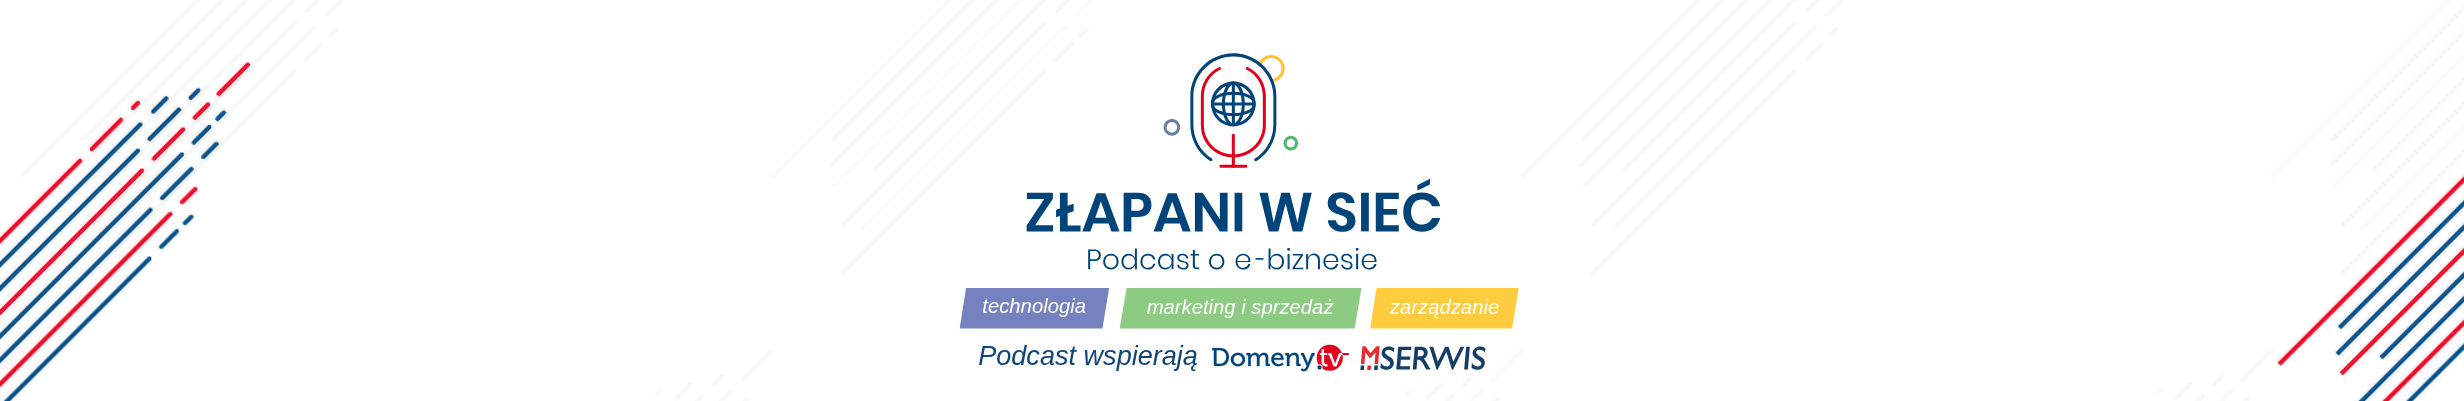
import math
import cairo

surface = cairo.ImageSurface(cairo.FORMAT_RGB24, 2464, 401)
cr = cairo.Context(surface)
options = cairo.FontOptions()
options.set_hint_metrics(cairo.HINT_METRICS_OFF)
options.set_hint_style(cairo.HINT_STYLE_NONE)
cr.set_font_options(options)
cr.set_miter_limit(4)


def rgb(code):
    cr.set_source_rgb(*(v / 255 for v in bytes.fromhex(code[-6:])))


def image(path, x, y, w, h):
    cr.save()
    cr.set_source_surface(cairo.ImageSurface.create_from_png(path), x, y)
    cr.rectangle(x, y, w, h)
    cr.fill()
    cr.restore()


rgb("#ffffff")
cr.paint()
image("img/1.png", 0, 0, 2464, 401)
image("img/2.png", 959, 53, 560, 319)
surface.write_to_png("page.png")
